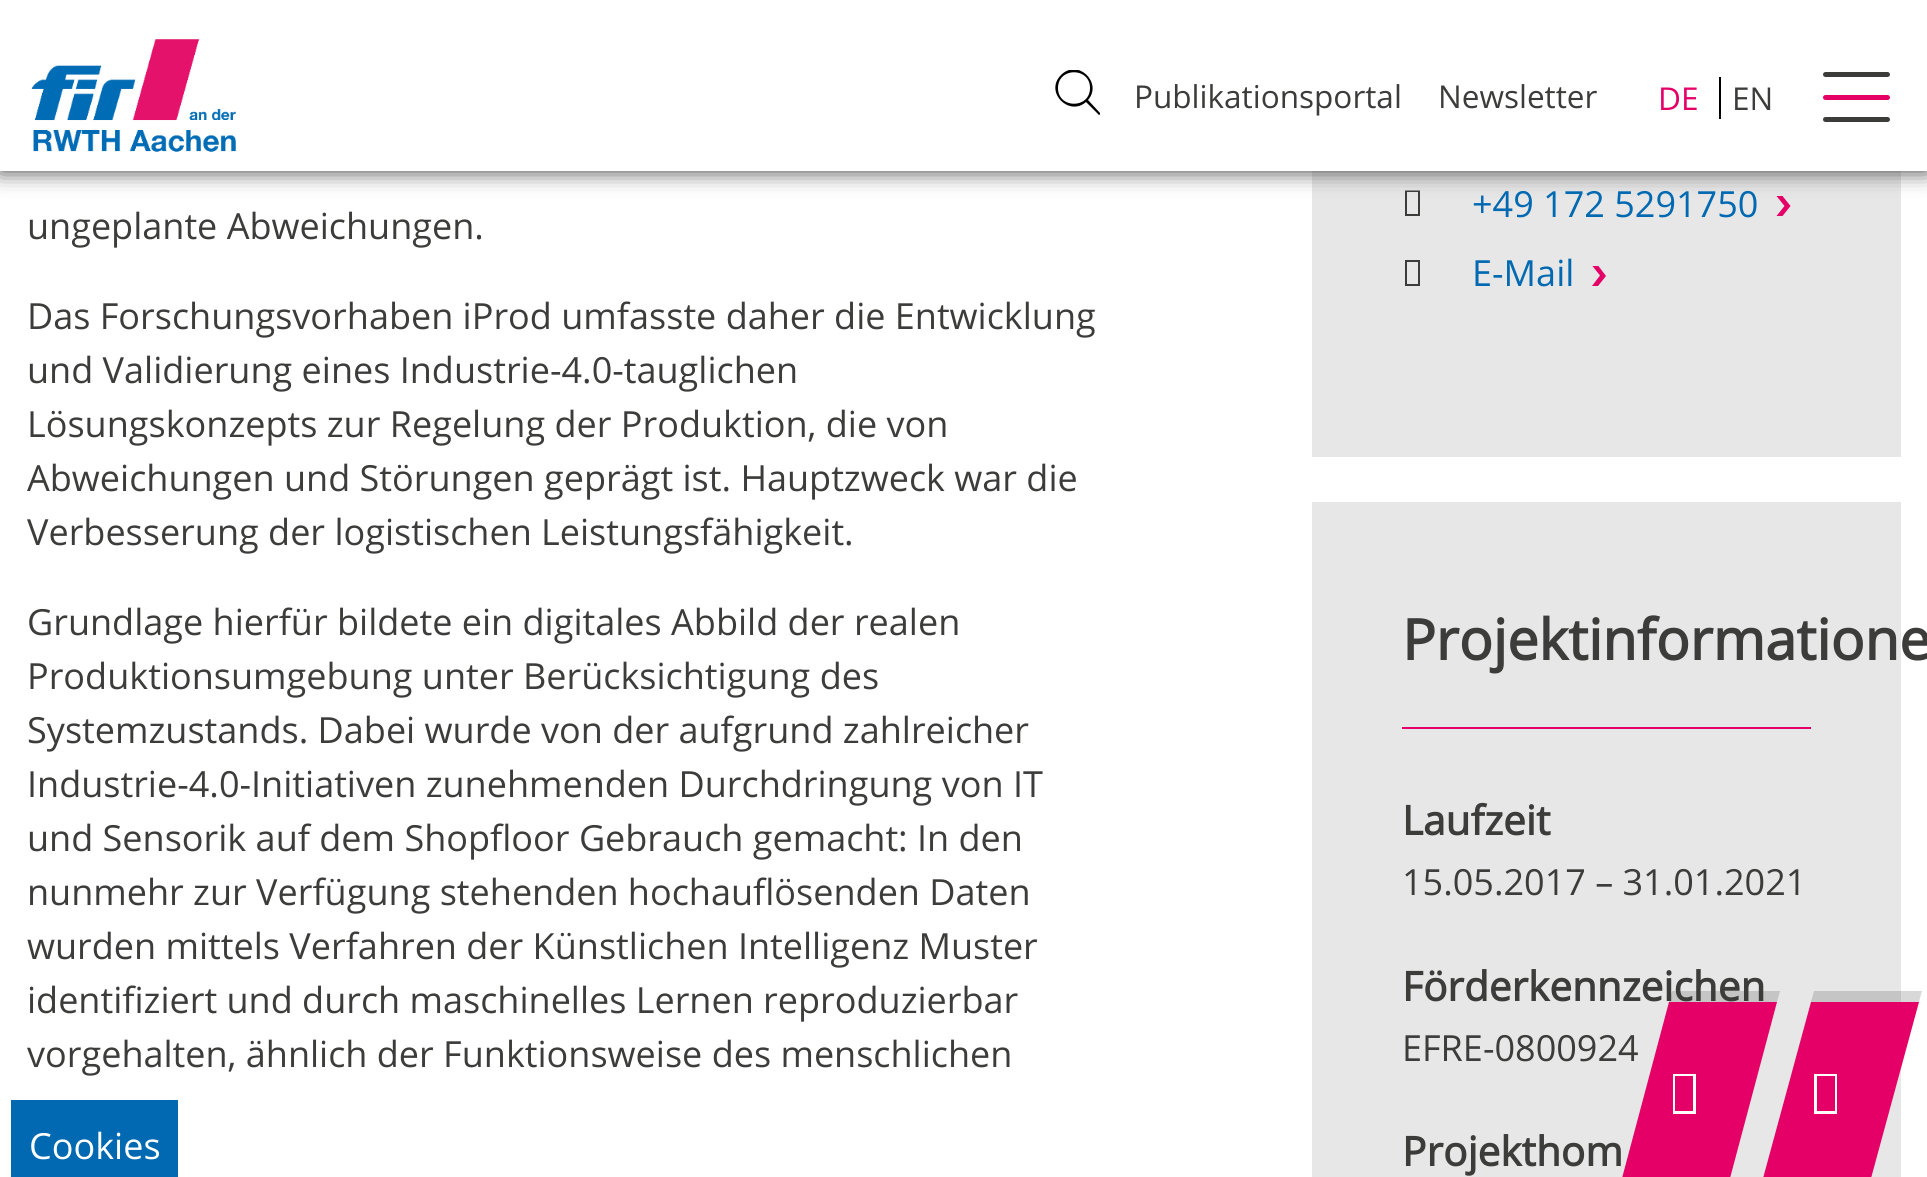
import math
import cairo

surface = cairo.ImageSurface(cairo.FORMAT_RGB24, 1927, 1177)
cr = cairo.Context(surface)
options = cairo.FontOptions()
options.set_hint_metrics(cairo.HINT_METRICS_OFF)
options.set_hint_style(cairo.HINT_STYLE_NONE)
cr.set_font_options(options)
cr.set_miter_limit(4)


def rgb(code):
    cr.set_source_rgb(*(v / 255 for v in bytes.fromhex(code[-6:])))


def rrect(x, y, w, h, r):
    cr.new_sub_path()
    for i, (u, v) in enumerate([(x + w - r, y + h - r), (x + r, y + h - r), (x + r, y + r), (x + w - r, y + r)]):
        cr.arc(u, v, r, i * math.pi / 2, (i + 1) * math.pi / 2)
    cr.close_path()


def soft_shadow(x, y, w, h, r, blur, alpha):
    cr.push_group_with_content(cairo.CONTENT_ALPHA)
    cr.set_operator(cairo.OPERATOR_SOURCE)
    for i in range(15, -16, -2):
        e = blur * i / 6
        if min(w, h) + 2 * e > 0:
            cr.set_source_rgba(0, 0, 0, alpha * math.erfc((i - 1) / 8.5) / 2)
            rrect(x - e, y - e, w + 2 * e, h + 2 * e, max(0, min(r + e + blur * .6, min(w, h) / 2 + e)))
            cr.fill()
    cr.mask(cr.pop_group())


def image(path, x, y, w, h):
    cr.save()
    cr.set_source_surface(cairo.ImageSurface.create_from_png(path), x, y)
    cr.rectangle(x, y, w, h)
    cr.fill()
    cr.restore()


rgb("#ffffff")
cr.paint()
rgb("#e7e7e7")
cr.rectangle(1312, 171, 589, 286)
cr.fill()
rgb("#3c3c3b")
cr.new_path()
cr.move_to(1405, 216)
cr.line_to(1405, 190.5)
cr.line_to(1420, 190.5)
cr.line_to(1420, 216)
cr.close_path()
cr.move_to(1407, 214)
cr.line_to(1418, 214)
cr.line_to(1418, 192)
cr.line_to(1407, 192)
cr.close_path()
cr.fill()
rgb("#e50067")
cr.new_path()
cr.move_to(1790.5, 206)
cr.line_to(1782.5, 216)
cr.line_to(1776.5, 216)
cr.line_to(1784.5, 206)
cr.line_to(1776.5, 196)
cr.line_to(1782.5, 196)
cr.close_path()
cr.fill()
rgb("#3c3c3b")
soft_shadow(0, 0, 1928, 171, 0, 11, 1)
rgb("#ffffff")
cr.rectangle(0, 0, 1927, 171)
cr.fill()
image("img/1.png", 31, 39, 205, 113)
cr.save()
cr.rectangle(1055, 70, 45, 45)
cr.clip()
rgb("#000000")
cr.new_path()
cr.move_to(1100, 113)
cr.line_to(1088, 100)
cr.curve_to(1103, 83, 1078, 58, 1061, 75)
cr.curve_to(1044, 92, 1069, 117, 1086, 102)
cr.line_to(1098, 114)
cr.curve_to(1099, 116, 1101, 114, 1100, 113)
cr.close_path()
cr.move_to(1058, 88)
cr.curve_to(1058, 67, 1090, 67, 1090, 88)
cr.curve_to(1090, 109, 1058, 109, 1058, 88)
cr.close_path()
cr.fill()
cr.restore()
rgb("#000000")
cr.rectangle(1719, 77, 2, 42)
cr.fill()
rgb("#3c3c3b")
rrect(1823, 72, 67, 5, 2.5)
cr.fill()
rgb("#e50067")
rrect(1823, 95, 67, 5, 2.5)
cr.fill()
rgb("#3c3c3b")
rrect(1823, 117, 67, 5, 2.5)
cr.fill()
cr.new_path()
cr.move_to(1405, 286)
cr.line_to(1405, 260)
cr.line_to(1420, 260)
cr.line_to(1420, 286)
cr.close_path()
cr.move_to(1407, 284)
cr.line_to(1418, 284)
cr.line_to(1418, 262)
cr.line_to(1407, 262)
cr.close_path()
cr.fill()
cr.save()
cr.rectangle(1589, 266, 20, 20)
cr.clip()
rgb("#e50067")
cr.new_path()
cr.move_to(1606, 276)
cr.line_to(1598, 286)
cr.line_to(1592, 286)
cr.line_to(1600, 275.5)
cr.line_to(1592, 265.5)
cr.line_to(1598, 265.5)
cr.close_path()
cr.fill()
cr.restore()
for x, y, w, h, color in [
    (1312, 502, 589, 675, "#e7e7e7"),
    (1402, 727, 409, 2, "#e50067"),
    (11, 1100, 167, 77, "#0069b1"),
]:
    rgb(color)
    cr.rectangle(x, y, w, h)
    cr.fill()
cr.set_source_rgba(0.251, 0.251, 0.251, 0.2)
cr.set_fill_rule(cairo.FILL_RULE_EVEN_ODD)
cr.new_path()
cr.move_to(1814, 991)
cr.line_to(1811, 1002)
cr.line_to(1919, 1002)
cr.line_to(1896, 1085)
cr.line_to(1922, 991)
cr.close_path()
cr.move_to(1765, 1171)
cr.line_to(1788, 1085)
cr.close_path()
cr.fill()
cr.select_font_face("Open Sans")
cr.set_font_size(31.5)
rgb("#3c3c3b")
cr.move_to(1134, 108)
cr.show_text("Publikationsportal")
cr.move_to(1438, 108)
cr.show_text("Newsletter")
rgb("#e50067")
cr.move_to(1658, 110)
cr.show_text("DE")
rgb("#3c3c3b")
cr.move_to(1732, 110)
cr.show_text("EN")
cr.set_font_size(36)
for x, y, s in [
    (27, 239, "ungeplante Abweichungen."),
    (27, 329, "Das Forschungsvorhaben iProd umfasste daher die Entwicklung"),
    (27, 383, "und Validierung eines Industrie-4.0-tauglichen"),
    (27, 437, "Lösungskonzepts zur Regelung der Produktion, die von"),
    (27, 491, "Abweichungen und Störungen geprägt ist. Hauptzweck war die"),
    (27, 545, "Verbesserung der logistischen Leistungsfähigkeit."),
    (27, 635, "Grundlage hierfür bildete ein digitales Abbild der realen"),
    (27, 689, "Produktionsumgebung unter Berücksichtigung des"),
    (27, 743, "Systemzustands. Dabei wurde von der aufgrund zahlreicher"),
    (27, 797, "Industrie-4.0-Initiativen zunehmenden Durchdringung von IT"),
    (27, 851, "und Sensorik auf dem Shopfloor Gebrauch gemacht: In den"),
    (27, 905, "nunmehr zur Verfügung stehenden hochauflösenden Daten"),
    (27, 959, "wurden mittels Verfahren der Künstlichen Intelligenz Muster"),
    (27, 1013, "identifiziert und durch maschinelles Lernen reproduzierbar"),
    (27, 1067, "vorgehalten, ähnlich der Funktionsweise des menschlichen"),
]:
    cr.move_to(x, y)
    cr.show_text(s)
rgb("#0069b1")
cr.move_to(1472, 217)
cr.show_text("+49 172 5291750")
cr.move_to(1472, 286)
cr.show_text("E-Mail")
cr.select_font_face("Open Sans", cairo.FONT_SLANT_NORMAL, cairo.FONT_WEIGHT_BOLD)
cr.set_font_size(56.25)
rgb("#3c3c3b")
cr.move_to(1402, 660)
cr.show_text("Projektinformatione")
cr.set_font_size(40.5)
cr.move_to(1402, 835)
cr.show_text("Laufzeit")
cr.select_font_face("Open Sans")
cr.set_font_size(36)
cr.move_to(1402, 895)
cr.show_text("15.05.2017 – 31.01.2021")
cr.select_font_face("Open Sans", cairo.FONT_SLANT_NORMAL, cairo.FONT_WEIGHT_BOLD)
cr.set_font_size(40.5)
cr.move_to(1402, 1001)
cr.show_text("Förderkennzeichen")
cr.select_font_face("Open Sans")
cr.set_font_size(36)
cr.move_to(1402, 1061)
cr.show_text("EFRE-0800924")
cr.select_font_face("Open Sans", cairo.FONT_SLANT_NORMAL, cairo.FONT_WEIGHT_BOLD)
cr.set_font_size(40.5)
cr.move_to(1402, 1166)
cr.show_text("Projekthom")
cr.select_font_face("Open Sans")
cr.set_font_size(36)
rgb("#ffffff")
cr.move_to(29, 1159)
cr.show_text("Cookies")
cr.set_source_rgba(0.251, 0.251, 0.251, 0.2)
cr.set_fill_rule(cairo.FILL_RULE_WINDING)
cr.new_path()
cr.move_to(1672, 991)
cr.line_to(1669, 1002)
cr.line_to(1777, 1002)
cr.line_to(1732, 1171)
cr.line_to(1780, 991)
cr.close_path()
cr.fill()
rgb("#e50067")
cr.new_path()
cr.move_to(1669, 1002)
cr.line_to(1777, 1002)
cr.line_to(1729, 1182)
cr.line_to(1621, 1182)
cr.close_path()
cr.fill()
rgb("#ffffff")
cr.new_path()
cr.move_to(1673, 1114)
cr.line_to(1673, 1074)
cr.line_to(1696, 1074)
cr.line_to(1696, 1114)
cr.close_path()
cr.move_to(1675, 1111)
cr.line_to(1693, 1111)
cr.line_to(1693, 1076)
cr.line_to(1675, 1076)
cr.close_path()
cr.fill()
rgb("#e50067")
cr.new_path()
cr.move_to(1811, 1002)
cr.line_to(1919, 1002)
cr.line_to(1870, 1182)
cr.line_to(1762, 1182)
cr.close_path()
cr.fill()
rgb("#ffffff")
cr.new_path()
cr.move_to(1814, 1114)
cr.line_to(1814, 1074)
cr.line_to(1837, 1074)
cr.line_to(1837, 1114)
cr.close_path()
cr.move_to(1817, 1111)
cr.line_to(1835, 1111)
cr.line_to(1835, 1076)
cr.line_to(1817, 1076)
cr.close_path()
cr.fill()
surface.write_to_png("page.png")
